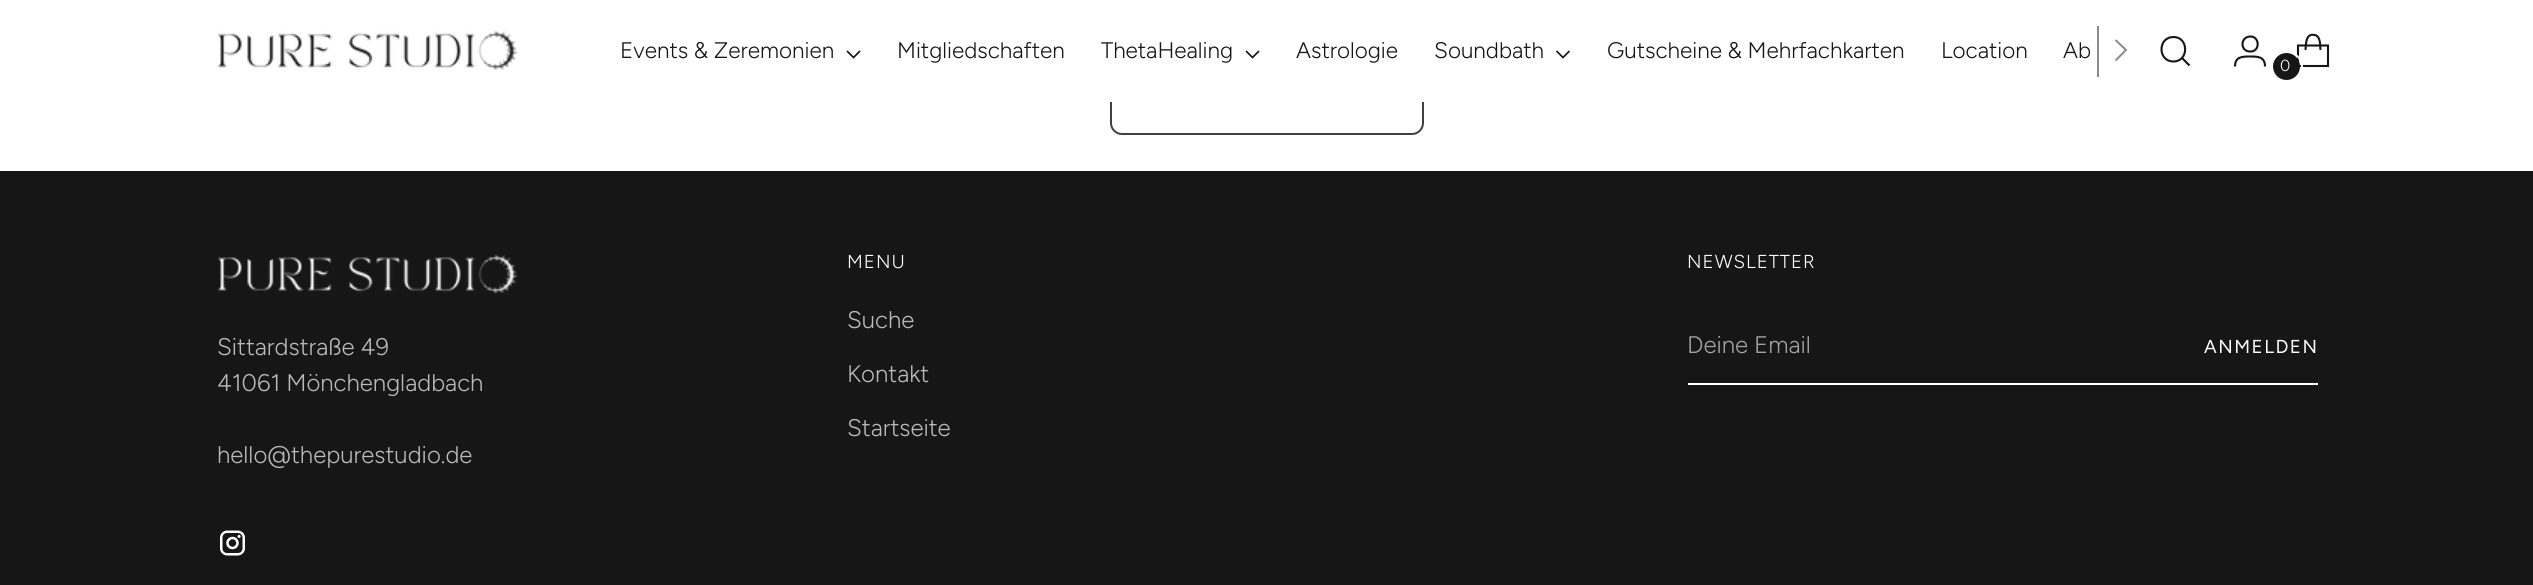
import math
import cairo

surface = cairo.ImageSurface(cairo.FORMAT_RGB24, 2533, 585)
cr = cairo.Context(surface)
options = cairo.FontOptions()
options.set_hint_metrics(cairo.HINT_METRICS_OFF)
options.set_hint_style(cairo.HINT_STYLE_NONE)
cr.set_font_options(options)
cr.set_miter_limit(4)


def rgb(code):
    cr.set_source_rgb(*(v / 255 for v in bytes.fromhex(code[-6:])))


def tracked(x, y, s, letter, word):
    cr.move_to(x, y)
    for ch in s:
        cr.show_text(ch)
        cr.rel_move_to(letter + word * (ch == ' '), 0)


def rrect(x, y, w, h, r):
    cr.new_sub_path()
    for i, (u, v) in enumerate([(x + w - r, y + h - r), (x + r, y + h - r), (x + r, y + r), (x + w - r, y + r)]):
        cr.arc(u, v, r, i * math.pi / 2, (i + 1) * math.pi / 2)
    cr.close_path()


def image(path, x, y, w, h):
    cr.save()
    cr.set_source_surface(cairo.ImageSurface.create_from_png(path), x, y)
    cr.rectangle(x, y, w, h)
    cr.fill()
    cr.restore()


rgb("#ffffff")
cr.paint()
rrect(1111, 64, 312, 70, 11)
rgb("#433f3d")
cr.stroke()
rgb("#ffffff")
cr.rectangle(1110, 63, 314, 39)
cr.fill()
image("img/1.png", 217, 31, 301, 39)
cr.new_path()
cr.move_to(847, 51)
cr.line_to(853.5, 57.5)
cr.line_to(860, 51)
rgb("#161616")
cr.set_line_width(1.7)
cr.stroke()
cr.new_path()
cr.move_to(1246, 51)
cr.line_to(1252.5, 57.5)
cr.line_to(1259, 51)
cr.stroke()
cr.new_path()
cr.move_to(1556.5, 51)
cr.line_to(1563, 57.5)
cr.line_to(1569.5, 51)
cr.stroke()
rgb("#8b8b8b")
cr.rectangle(2097, 26, 2, 51)
cr.fill()
cr.new_path()
cr.move_to(2115.5, 60.5)
cr.line_to(2126, 50)
cr.line_to(2115.5, 40)
cr.set_line_width(2)
cr.stroke()
cr.new_path()
cr.move_to(2173.5, 61.5)
cr.curve_to(2189, 61.5, 2189, 37, 2173.5, 37)
cr.curve_to(2157.5, 37, 2157.5, 61.5, 2173.5, 61.5)
cr.close_path()
rgb("#161616")
cr.set_line_width(2.1)
cr.set_line_cap(cairo.LINE_CAP_ROUND)
cr.stroke()
cr.new_path()
cr.move_to(2182, 58)
cr.line_to(2189.5, 65.5)
cr.set_line_cap(cairo.LINE_CAP_BUTT)
cr.stroke()
cr.new_path()
cr.move_to(2250, 51.5)
cr.curve_to(2260.5, 52, 2260, 36, 2250, 36.5)
cr.curve_to(2240, 37, 2240, 51.5, 2250, 51.5)
cr.close_path()
cr.move_to(2235, 66.5)
cr.curve_to(2235, 56.5, 2242.5, 56.5, 2250, 56.5)
cr.curve_to(2257.5, 56.5, 2265, 56.5, 2265, 66.5)
cr.stroke()
cr.new_path()
cr.move_to(2320.5, 50)
cr.curve_to(2320, 46.5, 2320.5, 42.5, 2319, 39)
cr.curve_to(2318.5, 37, 2316.5, 35, 2314.5, 35)
cr.curve_to(2305.5, 33, 2306, 44.5, 2305.5, 50)
cr.set_line_join(cairo.LINE_JOIN_BEVEL)
cr.stroke()
cr.new_path()
cr.move_to(2328, 66)
cr.line_to(2328, 45.5)
cr.line_to(2298, 45.5)
cr.line_to(2298, 66)
cr.close_path()
cr.set_line_join(cairo.LINE_JOIN_MITER)
cr.stroke()
cr.arc(2287, 67, 15, 0, 2 * math.pi)
rgb("#ffffff")
cr.set_line_width(2)
cr.stroke()
rgb("#161616")
cr.arc(2286.5, 66.5, 13.5, 0, 2 * math.pi)
cr.fill()
cr.rectangle(0, 171, 2533, 414)
cr.fill()
rgb("#ffffff")
cr.rectangle(1688, 383, 630, 2)
cr.fill()
image("img/2.png", 217, 254, 301, 40)
image("img/3.png", 220, 530, 25, 26)
cr.select_font_face("Figtree Light")
cr.set_font_size(22.5)
rgb("#161616")
for x, y, s in [
    (620, 58, "Events & Zeremonien"),
    (897, 58, "Mitgliedschaften"),
    (1101, 58, "ThetaHealing"),
    (1296, 58, "Astrologie"),
    (1434, 58, "Soundbath"),
    (1607, 58, "Gutscheine & Mehrfachkarten"),
    (1941, 58, "Location"),
    (2063, 58, "Ab"),
]:
    cr.move_to(x, y)
    cr.show_text(s)
cr.set_font_size(16)
rgb("#ffffff")
cr.move_to(2280, 71)
cr.show_text("0")
cr.set_font_size(18.75)
tracked(847, 268, "MENU", 1, 0)
cr.set_font_size(24)
rgb("#b9b9b9")
for x, y, s in [
    (847, 328, "Suche"),
    (847, 382, "Kontakt"),
    (847, 436, "Startseite"),
]:
    cr.move_to(x, y)
    cr.show_text(s)
cr.set_font_size(18.75)
rgb("#ffffff")
tracked(1687, 268, "NEWSLETTER", 1, 0)
cr.set_font_size(24)
rgb("#a2a2a2")
cr.move_to(1687, 353)
cr.show_text("Deine Email")
cr.select_font_face("Figtree")
cr.set_font_size(18.75)
rgb("#ffffff")
tracked(2204, 353, "ANMELDEN", 1.5, 0)
cr.select_font_face("Figtree Light")
cr.set_font_size(24)
rgb("#b9b9b9")
for x, y, s in [
    (217, 355, "Sittardstraße 49"),
    (217, 391, "41061 Mönchengladbach"),
    (217, 463, "hello@thepurestudio.de"),
]:
    cr.move_to(x, y)
    cr.show_text(s)
surface.write_to_png("page.png")
